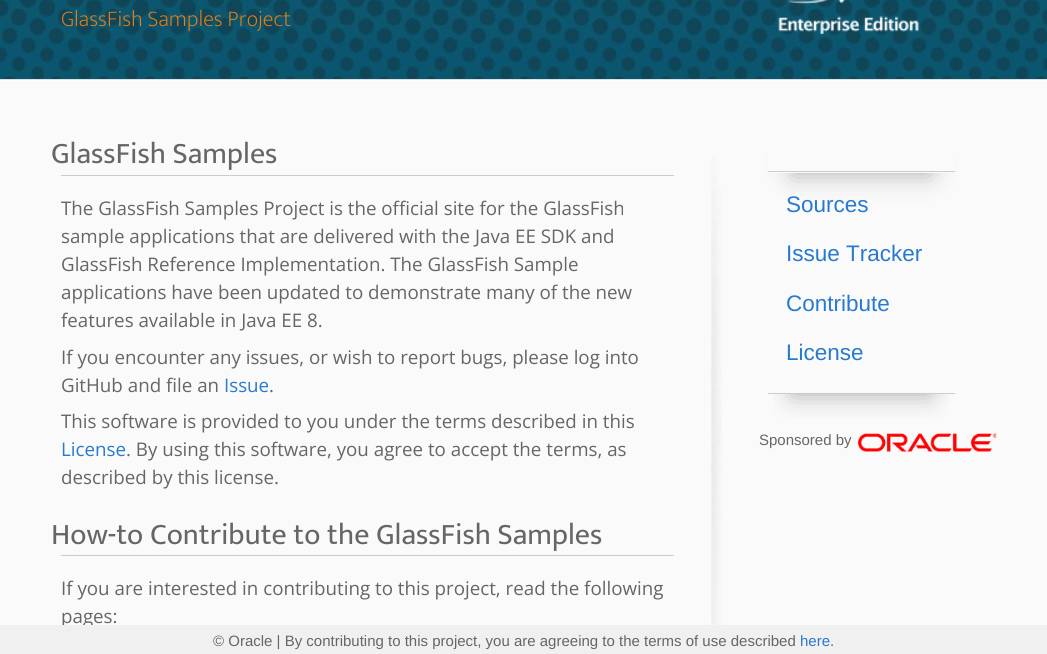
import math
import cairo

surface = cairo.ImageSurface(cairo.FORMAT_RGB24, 1047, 654)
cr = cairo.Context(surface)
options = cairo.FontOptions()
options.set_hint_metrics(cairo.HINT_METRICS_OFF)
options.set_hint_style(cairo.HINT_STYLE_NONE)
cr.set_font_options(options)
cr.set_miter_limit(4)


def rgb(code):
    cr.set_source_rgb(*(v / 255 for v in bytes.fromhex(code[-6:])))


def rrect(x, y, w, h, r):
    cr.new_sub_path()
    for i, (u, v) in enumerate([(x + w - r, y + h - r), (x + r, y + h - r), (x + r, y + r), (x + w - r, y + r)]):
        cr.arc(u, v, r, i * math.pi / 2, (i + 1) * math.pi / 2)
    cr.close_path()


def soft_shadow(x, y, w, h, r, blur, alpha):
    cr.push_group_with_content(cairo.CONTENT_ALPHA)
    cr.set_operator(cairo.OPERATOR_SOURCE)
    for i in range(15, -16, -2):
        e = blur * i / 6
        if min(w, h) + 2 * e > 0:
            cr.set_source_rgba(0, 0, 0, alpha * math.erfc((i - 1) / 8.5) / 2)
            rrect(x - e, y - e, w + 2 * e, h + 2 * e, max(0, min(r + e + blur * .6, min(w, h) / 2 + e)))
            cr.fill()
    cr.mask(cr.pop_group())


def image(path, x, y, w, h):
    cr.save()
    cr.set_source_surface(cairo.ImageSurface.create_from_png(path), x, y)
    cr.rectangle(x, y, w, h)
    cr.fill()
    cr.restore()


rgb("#fafafa")
cr.paint()
image("img/1.png", 0, 0, 1047, 79)
rgb("#e0e0e0")
cr.rectangle(0, 79, 1047, 1)
cr.fill()
image("img/2.png", 778, 0, 141, 34)
for x, y, w, h, color in [
    (0, 80, 1047, 1, "#ffffff"),
    (61, 175, 613, 1, "#cccccc"),
    (61, 555, 613, 1, "#cccccc"),
]:
    rgb(color)
    cr.rectangle(x, y, w, h)
    cr.fill()
image("img/3.png", 711, 157, 11, 468)
cr.save()
cr.set_fill_rule(cairo.FILL_RULE_EVEN_ODD)
cr.new_path()
cr.move_to(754, 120)
cr.line_to(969, 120)
cr.line_to(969, 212)
cr.line_to(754, 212)
cr.close_path()
cr.move_to(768, 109)
cr.line_to(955, 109)
cr.line_to(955, 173)
cr.line_to(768, 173)
cr.close_path()
cr.clip()
rgb("#aaaaaa")
soft_shadow(793, 159, 137, 14, 0, 12.5, 1)
cr.restore()
cr.rectangle(768, 171, 187, 1)
cr.fill()
cr.save()
cr.rectangle(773, 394, 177, 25)
cr.clip()
rgb("#aaaaaa")
soft_shadow(793, 380, 137, 14, 0, 12.5, 1)
cr.restore()
cr.rectangle(768, 393, 187, 1)
cr.fill()
image("img/4.png", 857, 433, 140, 19)
cr.select_font_face("Mukta Vaani ExtraLight")
cr.set_font_size(22.5)
rgb("#ec7d11")
cr.move_to(61, 26)
cr.show_text("GlassFish Samples Project")
cr.select_font_face("Mukta Vaani")
cr.set_font_size(30)
rgb("#666666")
cr.move_to(51, 163)
cr.show_text("GlassFish Samples")
cr.select_font_face("Open Sans")
cr.set_font_size(18.75)
for x, y, s in [
    (61, 215, "The GlassFish Samples Project is the official site for the GlassFish"),
    (61, 243, "sample applications that are delivered with the Java EE SDK and"),
    (61, 271, "GlassFish Reference Implementation. The GlassFish Sample"),
    (61, 299, "applications have been updated to demonstrate many of the new"),
    (61, 327, "features available in Java EE 8."),
    (61, 364, "If you encounter any issues, or wish to report bugs, please log into"),
    (61, 392, "GitHub and file an"),
]:
    cr.move_to(x, y)
    cr.show_text(s)
rgb("#2879d0")
cr.move_to(224, 392)
cr.show_text("Issue")
rgb("#666666")
cr.move_to(269, 392)
cr.show_text(".")
cr.move_to(61, 428)
cr.show_text("This software is provided to you under the terms described in this")
rgb("#2879d0")
cr.move_to(61, 456)
cr.show_text("License")
rgb("#666666")
cr.move_to(126, 456)
cr.show_text(". By using this software, you agree to accept the terms, as")
cr.move_to(61, 484)
cr.show_text("described by this license.")
cr.select_font_face("Mukta Vaani")
cr.set_font_size(30)
cr.move_to(51, 544)
cr.show_text("How-to Contribute to the GlassFish Samples")
cr.select_font_face("Open Sans")
cr.set_font_size(18.75)
cr.move_to(61, 595)
cr.show_text("If you are interested in contributing to this project, read the following")
cr.move_to(61, 623)
cr.show_text("pages:")
cr.select_font_face("Liberation Sans")
cr.set_font_size(22.5)
rgb("#2879d0")
for x, y, s in [
    (786, 212, "Sources"),
    (786, 261, "Issue Tracker"),
    (786, 311, "Contribute"),
    (786, 360, "License"),
]:
    cr.move_to(x, y)
    cr.show_text(s)
cr.set_font_size(15)
rgb("#666666")
cr.move_to(759, 445)
cr.show_text("Sponsored by")
rgb("#f0f0f0")
cr.rectangle(0, 625, 1047, 29)
cr.fill()
rgb("#666666")
cr.move_to(213, 646)
cr.show_text("© Oracle | By contributing to this project, you are agreeing to the terms of use described")
rgb("#2879d0")
cr.move_to(800, 646)
cr.show_text("here")
rgb("#666666")
cr.move_to(830, 646)
cr.show_text(".")
surface.write_to_png("page.png")
